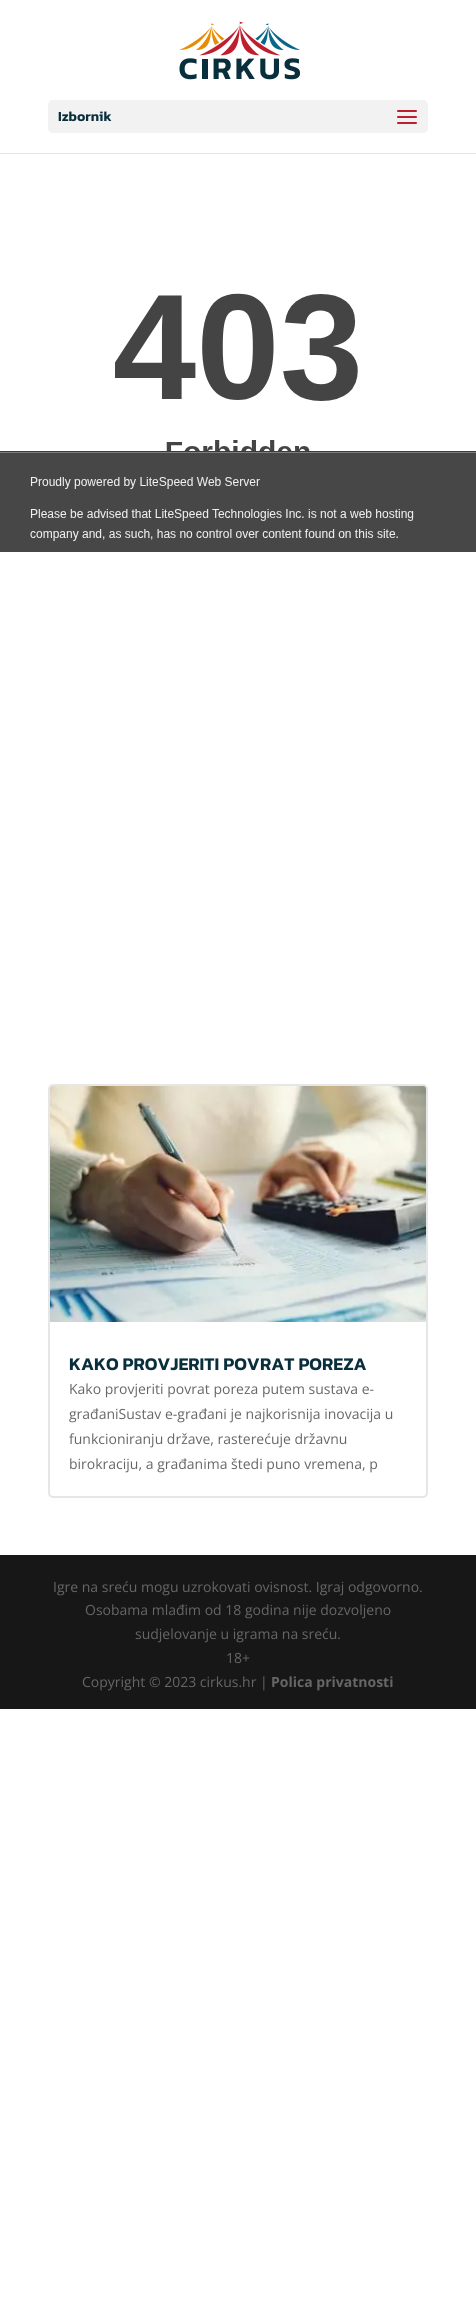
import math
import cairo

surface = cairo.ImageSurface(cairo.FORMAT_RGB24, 476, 2314)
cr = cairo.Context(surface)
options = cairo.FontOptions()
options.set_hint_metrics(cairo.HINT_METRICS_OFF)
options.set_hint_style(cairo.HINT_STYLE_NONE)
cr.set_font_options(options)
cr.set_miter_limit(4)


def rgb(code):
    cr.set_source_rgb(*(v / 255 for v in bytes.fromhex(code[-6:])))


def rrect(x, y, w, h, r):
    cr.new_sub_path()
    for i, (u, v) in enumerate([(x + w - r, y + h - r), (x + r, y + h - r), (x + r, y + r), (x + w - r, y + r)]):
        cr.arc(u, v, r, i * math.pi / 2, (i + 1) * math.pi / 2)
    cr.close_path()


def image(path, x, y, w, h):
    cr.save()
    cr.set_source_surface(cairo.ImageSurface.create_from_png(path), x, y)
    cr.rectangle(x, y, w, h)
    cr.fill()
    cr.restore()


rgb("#ffffff")
cr.paint()
rgb("#e6e6e6")
cr.rectangle(0, 153, 476, 1)
cr.fill()
image("img/1.png", 179, 21, 121, 59)
rgb("#f2f2f2")
rrect(48, 100, 380, 33, 5)
cr.fill()
image("img/2.png", 397, 110, 20, 14)
image("img/3.png", 0, 293, 476, 259)
rrect(49, 1085, 378, 412, 4)
rgb("#e6e6e6")
cr.stroke()
image("img/4.png", 50, 1086, 376, 236)
rgb("#171717")
cr.rectangle(0, 1555, 476, 154)
cr.fill()
cr.select_font_face("Kanit SemiBold")
cr.set_font_size(14)
rgb("#092f3c")
cr.move_to(58, 121)
cr.show_text("Izbornik")
cr.set_font_size(18)
cr.move_to(69, 1370)
cr.show_text("KAKO PROVJERITI POVRAT POREZA")
cr.select_font_face("Open Sans")
cr.set_font_size(14)
rgb("#666666")
for x, y, s in [
    (69, 1394, "Kako provjeriti povrat poreza putem sustava e-"),
    (69, 1419, "građaniSustav e-građani je najkorisnija inovacija u"),
    (69, 1444, "funkcioniranju države, rasterećuje državnu"),
    (69, 1469, "birokraciju, a građanima štedi puno vremena, p"),
    (53, 1592, "Igre na sreću mogu uzrokovati ovisnost. Igraj odgovorno."),
    (85, 1615, "Osobama mlađim od 18 godina nije dozvoljeno"),
    (135, 1639, "sudjelovanje u igrama na sreću."),
    (226, 1663, "18+"),
    (82, 1687, "Copyright © 2023 cirkus.hr |"),
]:
    cr.move_to(x, y)
    cr.show_text(s)
cr.select_font_face("Open Sans", cairo.FONT_SLANT_NORMAL, cairo.FONT_WEIGHT_BOLD)
cr.move_to(271, 1687)
cr.show_text("Polica privatnosti")
surface.write_to_png("page.png")
